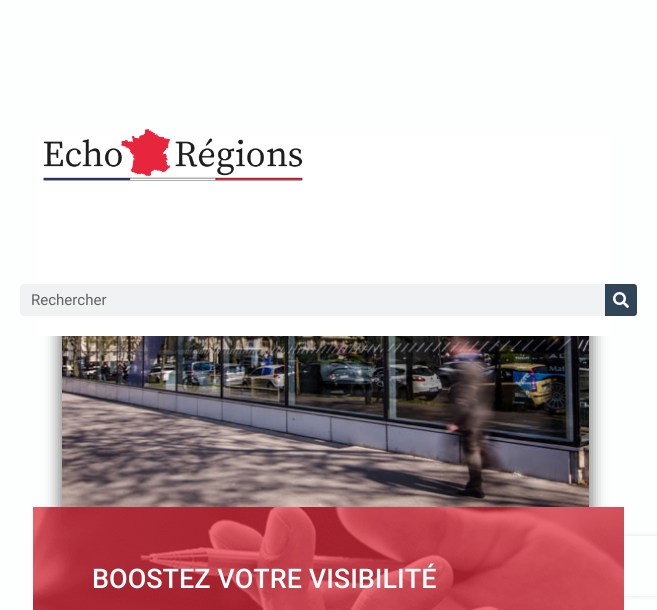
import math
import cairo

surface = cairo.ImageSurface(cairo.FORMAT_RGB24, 657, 610)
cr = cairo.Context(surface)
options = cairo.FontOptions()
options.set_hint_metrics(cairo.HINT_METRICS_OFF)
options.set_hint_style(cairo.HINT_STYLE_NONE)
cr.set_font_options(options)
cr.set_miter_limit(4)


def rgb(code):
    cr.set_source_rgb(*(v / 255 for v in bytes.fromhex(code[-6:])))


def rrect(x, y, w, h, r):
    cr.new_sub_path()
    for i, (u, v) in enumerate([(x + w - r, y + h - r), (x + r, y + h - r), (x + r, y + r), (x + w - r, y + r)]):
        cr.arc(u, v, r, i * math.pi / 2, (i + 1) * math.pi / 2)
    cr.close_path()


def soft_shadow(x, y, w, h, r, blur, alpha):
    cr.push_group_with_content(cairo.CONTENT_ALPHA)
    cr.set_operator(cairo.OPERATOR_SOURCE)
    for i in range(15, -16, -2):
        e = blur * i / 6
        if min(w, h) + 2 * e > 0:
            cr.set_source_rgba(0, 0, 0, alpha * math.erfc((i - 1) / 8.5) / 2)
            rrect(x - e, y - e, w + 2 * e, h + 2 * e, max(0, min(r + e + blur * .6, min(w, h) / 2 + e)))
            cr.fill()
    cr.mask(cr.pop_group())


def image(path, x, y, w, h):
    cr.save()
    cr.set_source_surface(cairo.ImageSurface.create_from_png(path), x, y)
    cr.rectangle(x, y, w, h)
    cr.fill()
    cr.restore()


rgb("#fdfefe")
cr.paint()
rgb("#000000")
soft_shadow(59, 155, 533, 355, 0, 7.5, 0.5)
rgb("#ffffff")
cr.rectangle(39, 135, 573, 201)
cr.fill()
image("img/1.png", 43, 128, 260, 53)
rgb("#f1f2f3")
rrect(20, 284, 617, 32, 3)
cr.fill()
rgb("#314559")
cr.new_path()
cr.move_to(605, 284)
cr.line_to(634, 284)
cr.curve_to(635.5, 284, 637, 285.5, 637, 287)
cr.line_to(637, 313)
cr.curve_to(637, 314.5, 635.5, 316, 634, 316)
cr.line_to(605, 316)
cr.close_path()
cr.fill()
image("img/2.png", 613, 292, 16, 16)
image("img/3.png", 62, 336, 527, 171)
cr.save()
cr.set_fill_rule(cairo.FILL_RULE_EVEN_ODD)
cr.new_path()
cr.move_to(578, 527)
cr.line_to(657, 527)
cr.line_to(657, 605)
cr.line_to(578, 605)
cr.close_path()
cr.move_to(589, 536)
cr.line_to(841, 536)
cr.curve_to(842, 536, 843, 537, 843, 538)
cr.line_to(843, 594)
cr.curve_to(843, 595, 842, 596, 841, 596)
cr.line_to(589, 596)
cr.curve_to(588, 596, 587, 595, 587, 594)
cr.line_to(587, 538)
cr.curve_to(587, 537, 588, 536, 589, 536)
cr.close_path()
cr.clip()
rgb("#e6e6e6")
soft_shadow(587, 536, 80, 60, 2, 2.5, 1)
cr.restore()
image("img/4.png", 33, 507, 591, 103)
cr.select_font_face("Roboto")
cr.set_font_size(15)
rgb("#606161")
cr.move_to(31, 305)
cr.show_text("Rechercher")
cr.select_font_face("Roboto Medium")
cr.set_font_size(27)
rgb("#ffffff")
cr.move_to(92, 588)
cr.show_text("BOOSTEZ VOTRE VISIBILITÉ")
surface.write_to_png("page.png")
